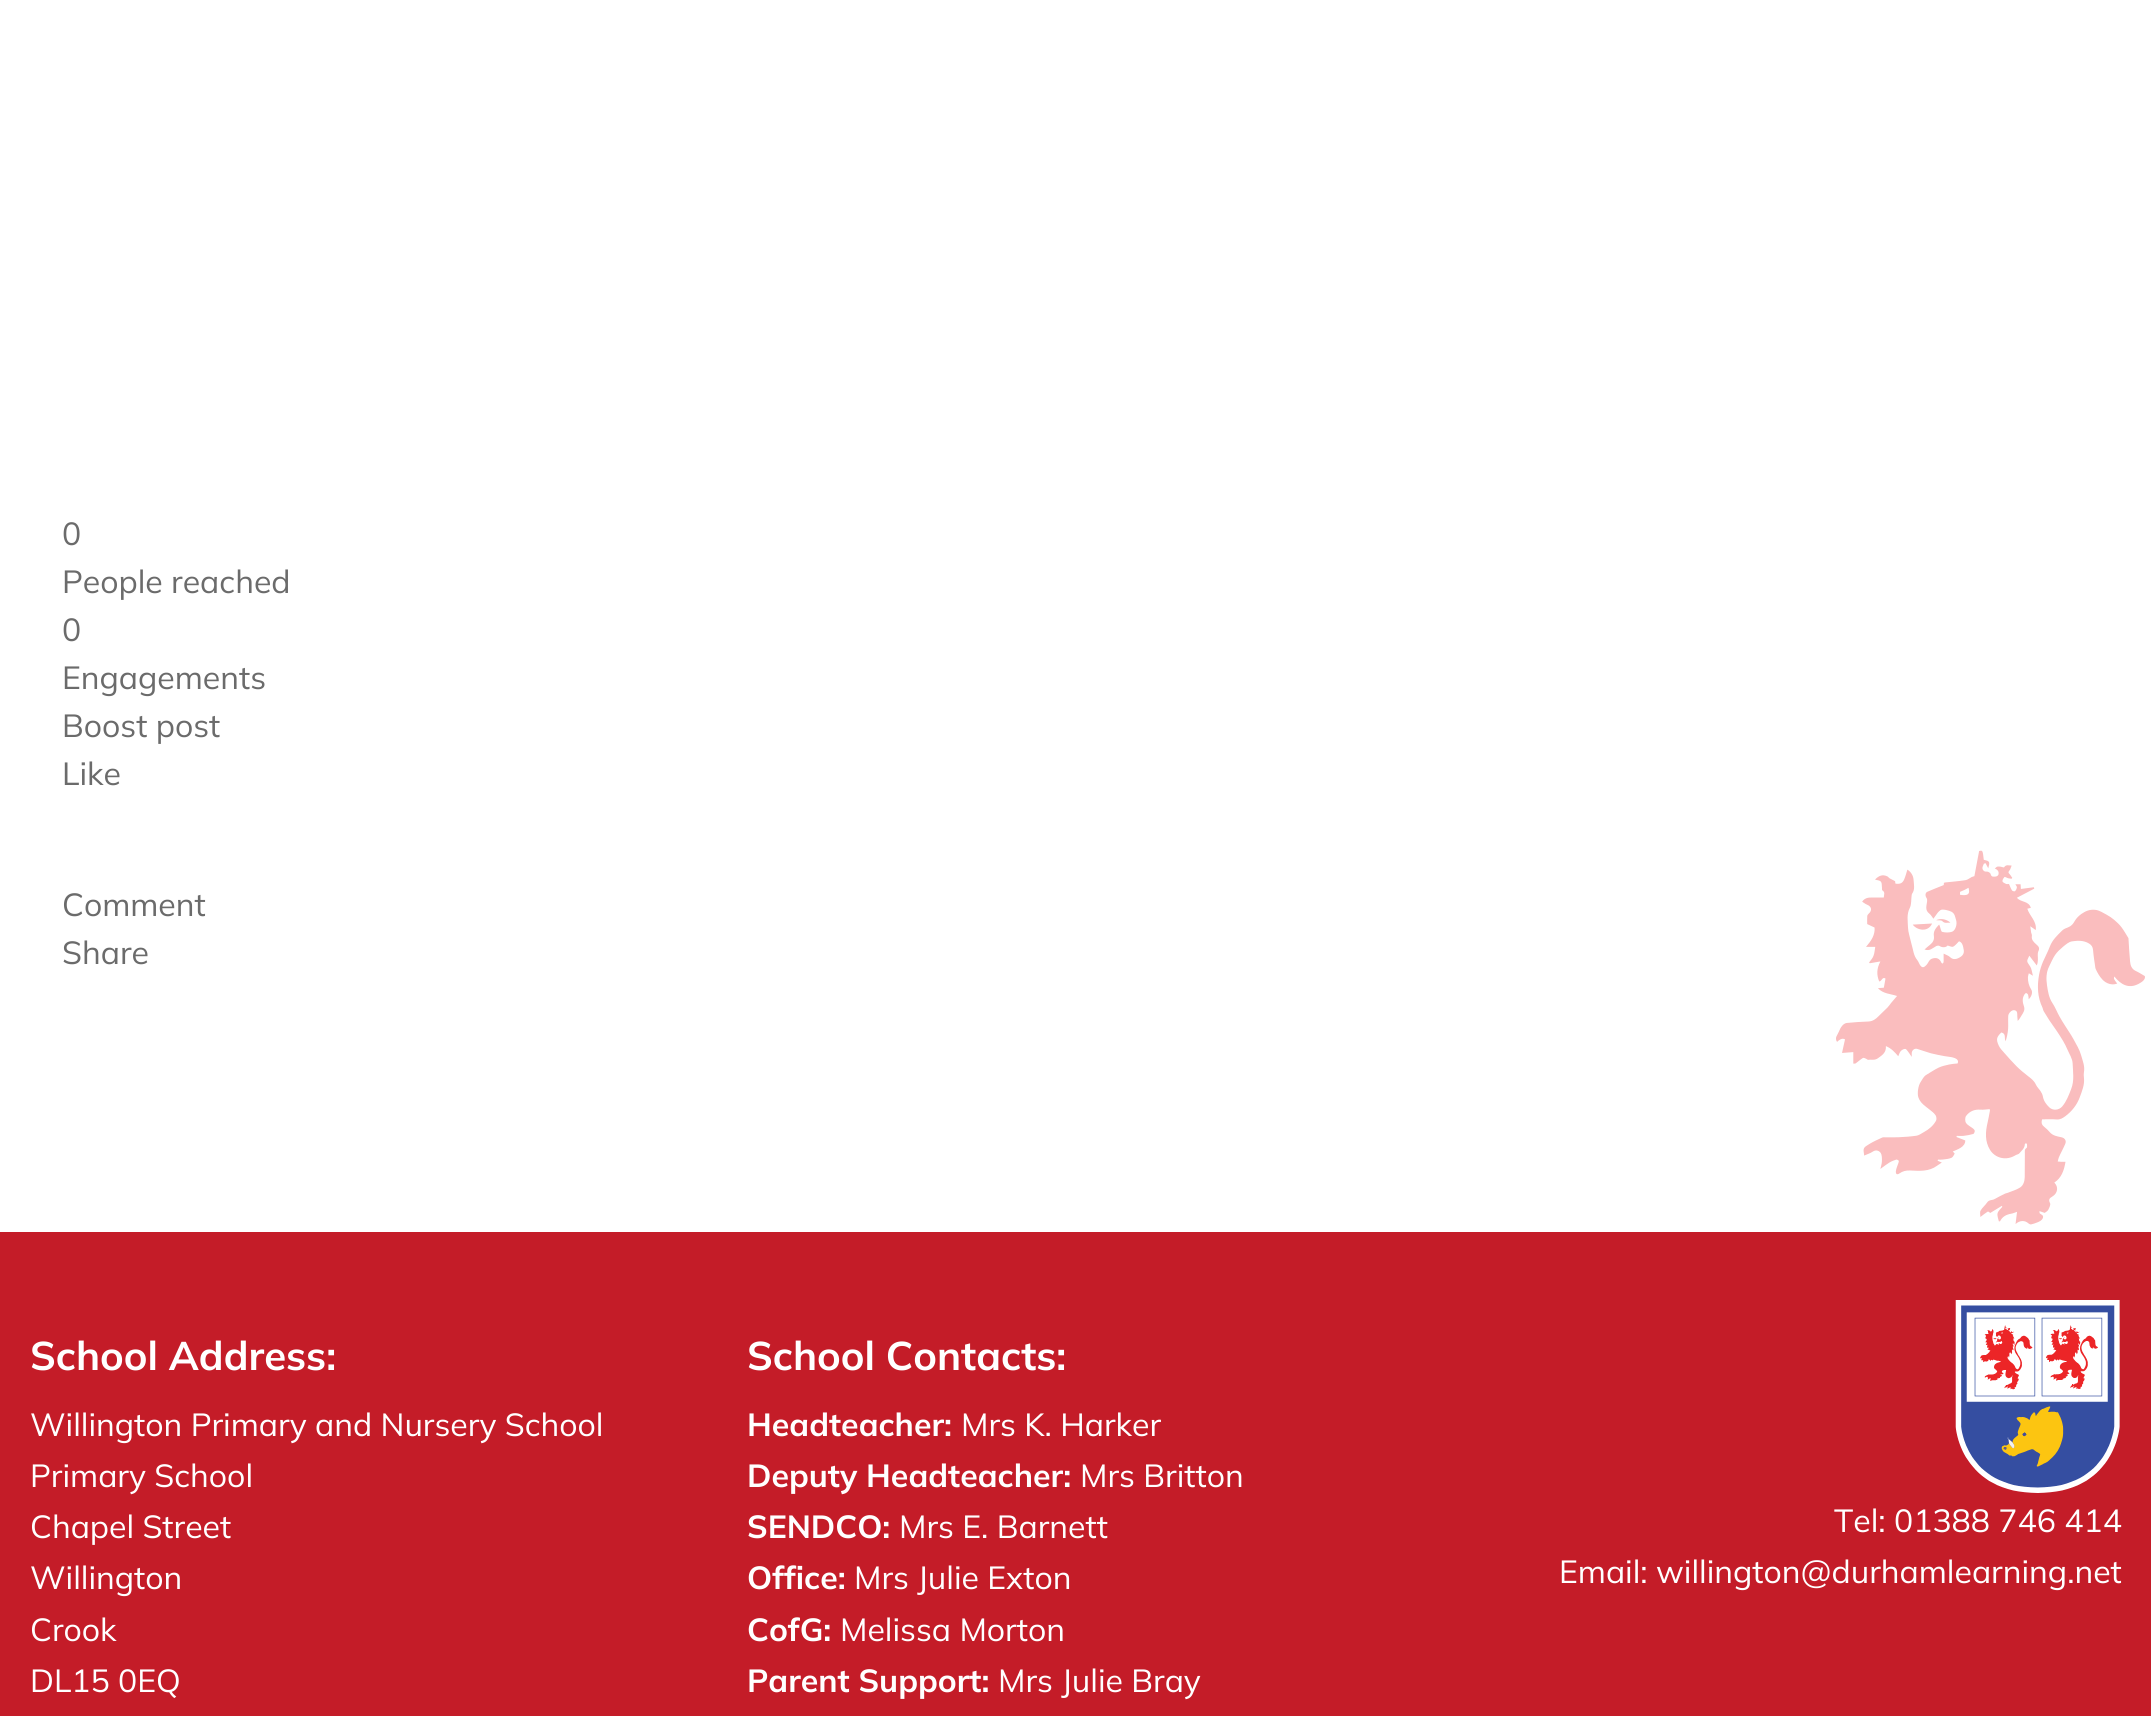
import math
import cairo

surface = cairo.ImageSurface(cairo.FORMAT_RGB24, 2151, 1716)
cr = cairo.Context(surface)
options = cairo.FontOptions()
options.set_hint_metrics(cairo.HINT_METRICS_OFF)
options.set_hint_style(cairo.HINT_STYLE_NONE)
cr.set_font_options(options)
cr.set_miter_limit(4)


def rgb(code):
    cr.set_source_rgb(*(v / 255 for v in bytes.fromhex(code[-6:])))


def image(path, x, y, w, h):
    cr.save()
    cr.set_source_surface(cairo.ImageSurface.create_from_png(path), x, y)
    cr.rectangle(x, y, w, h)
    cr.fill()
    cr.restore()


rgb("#ffffff")
cr.paint()
image("img/1.png", 1836, 850, 309, 375)
rgb("#c41c28")
cr.rectangle(0, 1232, 2151, 484)
cr.fill()
image("img/2.png", 1955, 1300, 165, 193)
cr.select_font_face("Mulish")
cr.set_font_size(32)
rgb("#6b6b6b")
for x, y, s in [
    (62, 545, "0"),
    (62, 593, "People reached"),
    (62, 641, "0"),
    (62, 689, "Engagements"),
    (62, 737, "Boost post"),
    (62, 785, "Like"),
    (62, 916, "Comment"),
    (62, 964, "Share"),
]:
    cr.move_to(x, y)
    cr.show_text(s)
cr.select_font_face("Mulish", cairo.FONT_SLANT_NORMAL, cairo.FONT_WEIGHT_BOLD)
cr.set_font_size(40)
rgb("#ffffff")
cr.move_to(30, 1370)
cr.show_text("School Address:")
cr.select_font_face("Mulish")
cr.set_font_size(32)
for x, y, s in [
    (30, 1436, "Willington Primary and Nursery School"),
    (30, 1487, "Primary School"),
    (30, 1538, "Chapel Street"),
    (30, 1589, "Willington"),
    (30, 1641, "Crook"),
    (30, 1692, "DL15 0EQ"),
]:
    cr.move_to(x, y)
    cr.show_text(s)
cr.select_font_face("Mulish", cairo.FONT_SLANT_NORMAL, cairo.FONT_WEIGHT_BOLD)
cr.set_font_size(40)
cr.move_to(747, 1370)
cr.show_text("School Contacts:")
cr.set_font_size(32)
cr.move_to(747, 1436)
cr.show_text("Headteacher:")
cr.select_font_face("Mulish")
cr.move_to(961, 1436)
cr.show_text("Mrs K. Harker")
cr.select_font_face("Mulish", cairo.FONT_SLANT_NORMAL, cairo.FONT_WEIGHT_BOLD)
cr.move_to(747, 1487)
cr.show_text("Deputy Headteacher:")
cr.select_font_face("Mulish")
cr.move_to(1080, 1487)
cr.show_text("Mrs Britton")
cr.select_font_face("Mulish", cairo.FONT_SLANT_NORMAL, cairo.FONT_WEIGHT_BOLD)
cr.move_to(747, 1538)
cr.show_text("SENDCO:")
cr.select_font_face("Mulish")
cr.move_to(899, 1538)
cr.show_text("Mrs E. Barnett")
cr.select_font_face("Mulish", cairo.FONT_SLANT_NORMAL, cairo.FONT_WEIGHT_BOLD)
cr.move_to(747, 1589)
cr.show_text("Office:")
cr.select_font_face("Mulish")
cr.move_to(854, 1589)
cr.show_text("Mrs Julie Exton")
cr.select_font_face("Mulish", cairo.FONT_SLANT_NORMAL, cairo.FONT_WEIGHT_BOLD)
cr.move_to(747, 1641)
cr.show_text("CofG:")
cr.select_font_face("Mulish")
cr.move_to(840, 1641)
cr.show_text("Melissa Morton")
cr.select_font_face("Mulish", cairo.FONT_SLANT_NORMAL, cairo.FONT_WEIGHT_BOLD)
cr.move_to(747, 1692)
cr.show_text("Parent Support:")
cr.select_font_face("Mulish")
for x, y, s in [
    (998, 1692, "Mrs Julie Bray"),
    (1834, 1532, "Tel: 01388 746 414"),
    (1559, 1583, "Email: willington@durhamlearning.net"),
]:
    cr.move_to(x, y)
    cr.show_text(s)
surface.write_to_png("page.png")
